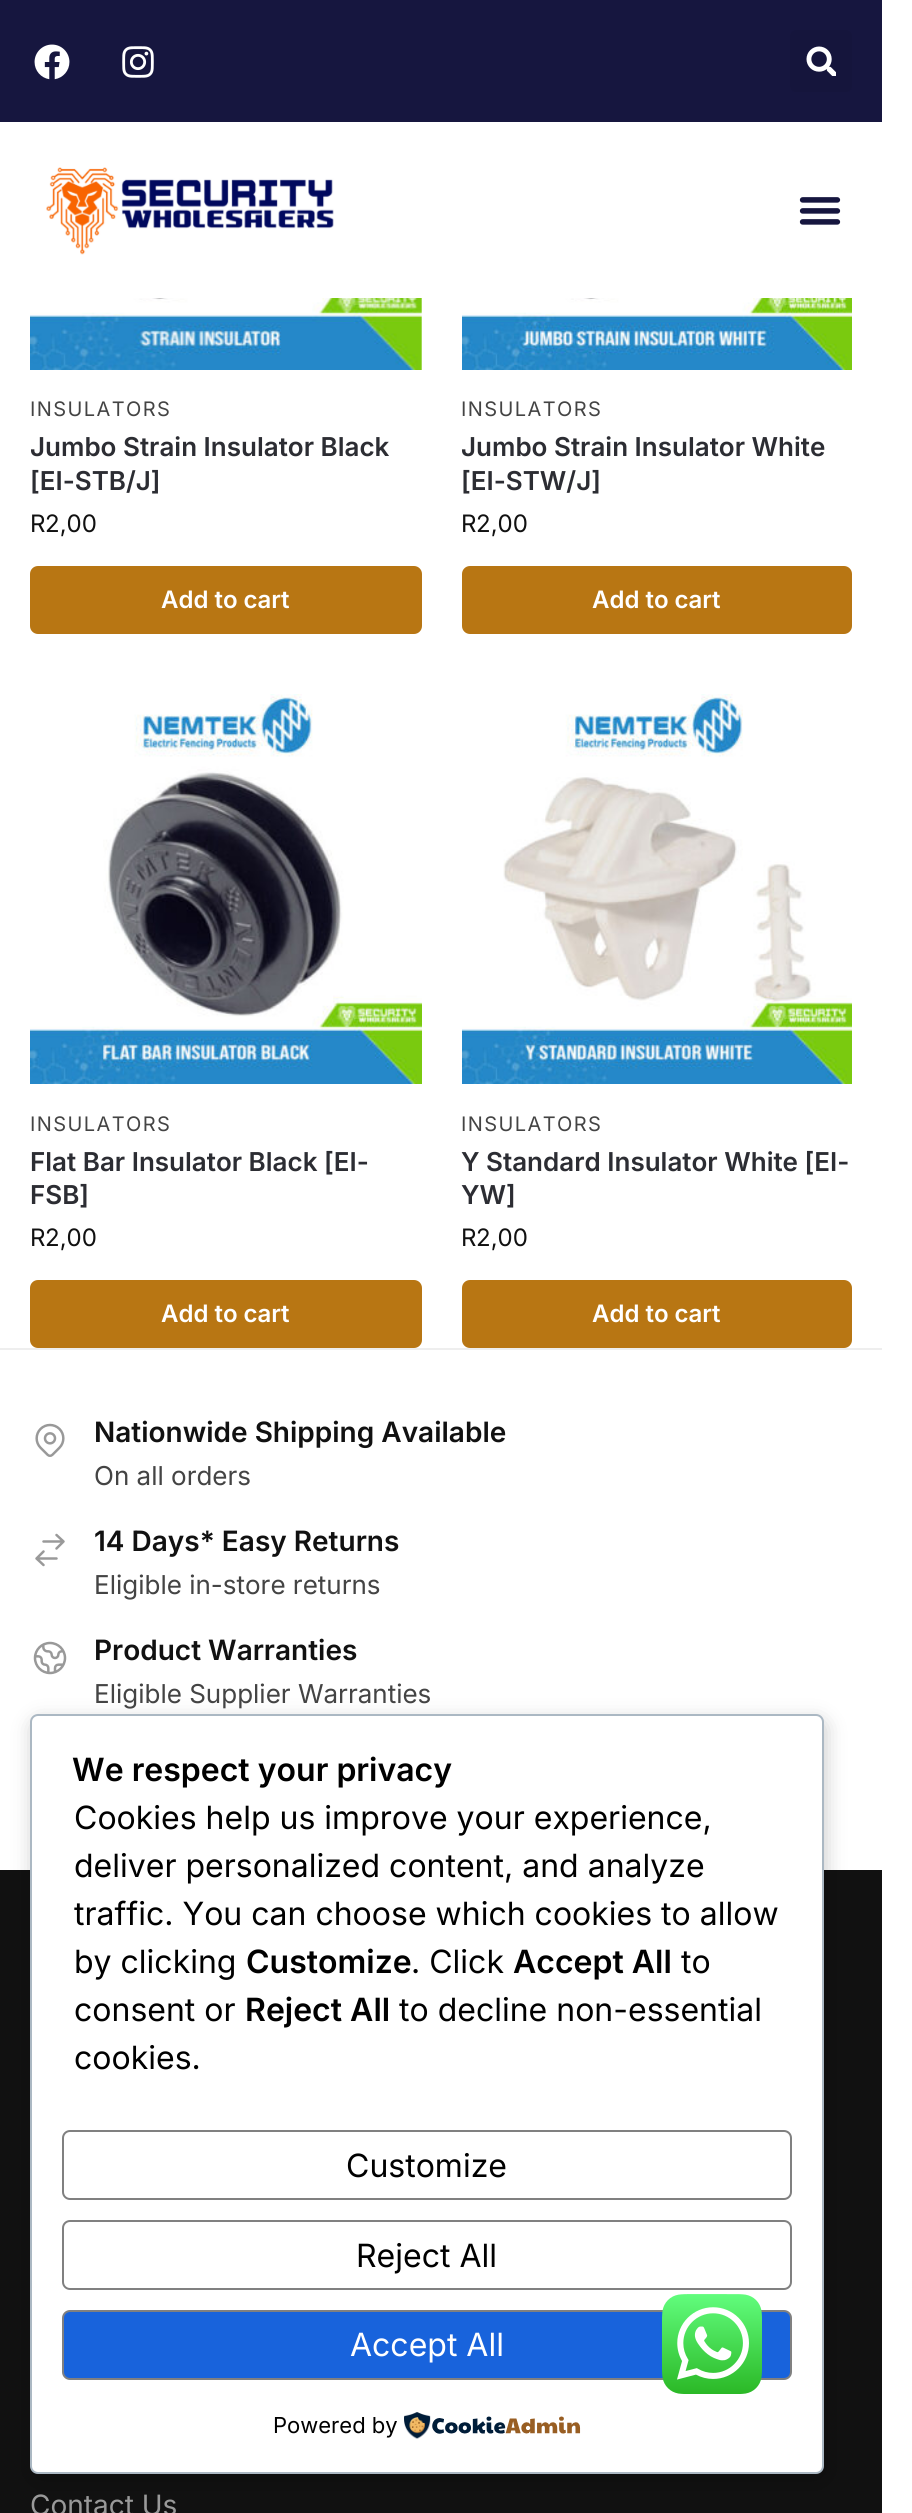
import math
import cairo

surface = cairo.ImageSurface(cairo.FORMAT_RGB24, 912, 2513)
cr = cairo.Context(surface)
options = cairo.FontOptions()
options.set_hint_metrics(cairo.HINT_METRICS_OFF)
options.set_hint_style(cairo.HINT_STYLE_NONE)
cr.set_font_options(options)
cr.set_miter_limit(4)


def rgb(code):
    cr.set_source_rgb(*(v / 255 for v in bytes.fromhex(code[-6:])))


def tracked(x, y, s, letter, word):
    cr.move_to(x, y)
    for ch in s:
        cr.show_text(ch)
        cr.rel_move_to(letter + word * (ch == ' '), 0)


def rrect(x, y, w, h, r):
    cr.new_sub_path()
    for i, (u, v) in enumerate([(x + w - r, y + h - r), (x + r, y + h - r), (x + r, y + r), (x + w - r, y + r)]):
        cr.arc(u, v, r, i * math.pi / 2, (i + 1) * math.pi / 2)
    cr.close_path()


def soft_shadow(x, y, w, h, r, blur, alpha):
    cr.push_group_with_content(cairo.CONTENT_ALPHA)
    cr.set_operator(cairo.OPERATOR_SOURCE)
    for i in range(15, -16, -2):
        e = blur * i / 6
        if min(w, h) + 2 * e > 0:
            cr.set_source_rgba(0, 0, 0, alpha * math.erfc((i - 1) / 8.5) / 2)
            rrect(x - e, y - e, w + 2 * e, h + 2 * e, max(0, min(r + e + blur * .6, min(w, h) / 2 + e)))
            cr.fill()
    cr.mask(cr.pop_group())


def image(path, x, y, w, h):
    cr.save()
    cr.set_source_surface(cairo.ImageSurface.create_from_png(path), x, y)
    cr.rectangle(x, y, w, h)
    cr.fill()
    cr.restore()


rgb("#ffffff")
cr.paint()
rgb("#16163f")
cr.rectangle(0, 0, 882, 122)
cr.fill()
image("img/1.png", 34, 44, 36, 36)
image("img/2.png", 122, 46, 32, 32)
rgb("#15153c")
rrect(790, 30, 62, 62, 6)
cr.fill()
image("img/3.png", 806, 46, 30, 30)
image("img/4.png", 46, 167, 288, 88)
image("img/5.png", 799, 197, 42, 28)
image("img/6.png", 30, 298, 392, 72)
rgb("#b87613")
rrect(30, 566, 392, 68, 8)
cr.fill()
image("img/7.png", 462, 298, 390, 72)
rrect(462, 566, 390, 68, 8)
cr.fill()
image("img/8.png", 30, 694, 392, 390)
rrect(30, 1280, 392, 68, 8)
cr.fill()
image("img/9.png", 462, 694, 390, 390)
rrect(462, 1280, 390, 68, 8)
cr.fill()
rgb("#eeeeee")
cr.rectangle(0, 1348, 882, 2)
cr.fill()
image("img/10.png", 35, 1423, 30, 34)
cr.new_path()
cr.move_to(43.5, 1541.5)
cr.line_to(63.5, 1541.5)
cr.move_to(63.5, 1541.5)
cr.line_to(56.5, 1535)
cr.move_to(63.5, 1541.5)
cr.line_to(56.5, 1548.5)
cr.move_to(56.5, 1558.5)
cr.line_to(36.5, 1558.5)
cr.move_to(36.5, 1558.5)
cr.line_to(43.5, 1565)
cr.move_to(36.5, 1558.5)
cr.line_to(43.5, 1551.5)
rgb("#999999")
cr.set_line_width(2.5)
cr.set_line_cap(cairo.LINE_CAP_ROUND)
cr.set_line_join(cairo.LINE_JOIN_ROUND)
cr.stroke()
image("img/11.png", 33, 1641, 34, 34)
rgb("#111111")
cr.rectangle(0, 1870, 882, 643)
cr.fill()
rgb("#000000")
soft_shadow(32, 1720, 794, 760, 8, 10, 0.2)
rgb("#ffffff")
rrect(31, 1715, 792, 758, 7)
cr.fill_preserve()
rgb("#abb8c3")
cr.set_line_width(2)
cr.set_line_cap(cairo.LINE_CAP_BUTT)
cr.set_line_join(cairo.LINE_JOIN_MITER)
cr.stroke()
rrect(63, 2131, 728, 68, 7)
rgb("#808080")
cr.stroke()
rrect(63, 2221, 728, 68, 7)
cr.stroke()
rgb("#1863dc")
rrect(63, 2311, 728, 68, 7)
cr.fill_preserve()
rgb("#808080")
cr.stroke()
image("img/12.png", 404, 2412, 177, 27)
image("img/13.png", 662, 2294, 100, 100)
cr.select_font_face("Inter")
cr.set_font_size(20)
rgb("#444444")
tracked(30, 416, "INSULATORS", 1.4, 0)
cr.select_font_face("Inter SemiBold")
cr.set_font_size(26)
rgb("#2c2d33")
cr.move_to(30, 456)
cr.show_text("Jumbo Strain Insulator Black")
cr.move_to(30, 490)
cr.show_text("[EI-STB/J]")
cr.select_font_face("Inter")
cr.set_font_size(24)
rgb("#111111")
cr.move_to(30, 532)
cr.show_text("R")
cr.move_to(45, 532)
cr.show_text("2,00")
cr.select_font_face("Inter SemiBold")
rgb("#ffffff")
cr.move_to(161, 608)
cr.show_text("Add to cart")
cr.select_font_face("Inter")
cr.set_font_size(20)
rgb("#444444")
tracked(461, 416, "INSULATORS", 1.4, 0)
cr.select_font_face("Inter SemiBold")
cr.set_font_size(26)
rgb("#2c2d33")
cr.move_to(461, 456)
cr.show_text("Jumbo Strain Insulator White")
cr.move_to(461, 490)
cr.show_text("[EI-STW/J]")
cr.select_font_face("Inter")
cr.set_font_size(24)
rgb("#111111")
cr.move_to(461, 532)
cr.show_text("R")
cr.move_to(476, 532)
cr.show_text("2,00")
cr.select_font_face("Inter SemiBold")
rgb("#ffffff")
cr.move_to(592, 608)
cr.show_text("Add to cart")
cr.select_font_face("Inter")
cr.set_font_size(20)
rgb("#444444")
tracked(30, 1131, "INSULATORS", 1.4, 0)
cr.select_font_face("Inter SemiBold")
cr.set_font_size(26)
rgb("#2c2d33")
cr.move_to(30, 1171)
cr.show_text("Flat Bar Insulator Black [EI-")
cr.move_to(30, 1204)
cr.show_text("FSB]")
cr.select_font_face("Inter")
cr.set_font_size(24)
rgb("#111111")
cr.move_to(30, 1246)
cr.show_text("R")
cr.move_to(45, 1246)
cr.show_text("2,00")
cr.select_font_face("Inter SemiBold")
rgb("#ffffff")
cr.move_to(161, 1322)
cr.show_text("Add to cart")
cr.select_font_face("Inter")
cr.set_font_size(20)
rgb("#444444")
tracked(461, 1131, "INSULATORS", 1.4, 0)
cr.select_font_face("Inter SemiBold")
cr.set_font_size(26)
rgb("#2c2d33")
cr.move_to(461, 1171)
cr.show_text("Y Standard Insulator White [EI-")
cr.move_to(461, 1204)
cr.show_text("YW]")
cr.select_font_face("Inter")
cr.set_font_size(24)
rgb("#111111")
cr.move_to(461, 1246)
cr.show_text("R")
cr.move_to(476, 1246)
cr.show_text("2,00")
cr.select_font_face("Inter SemiBold")
rgb("#ffffff")
cr.move_to(592, 1322)
cr.show_text("Add to cart")
cr.set_font_size(28)
rgb("#111111")
cr.move_to(94, 1442)
cr.show_text("Nationwide Shipping Available")
cr.select_font_face("Inter")
cr.set_font_size(26)
rgb("#444444")
cr.move_to(94, 1485)
cr.show_text("On all orders")
cr.select_font_face("Inter SemiBold")
cr.set_font_size(28)
rgb("#111111")
cr.move_to(94, 1551)
cr.show_text("14 Days* Easy Returns")
cr.select_font_face("Inter")
cr.set_font_size(26)
rgb("#444444")
cr.move_to(94, 1594)
cr.show_text("Eligible in-store returns")
cr.select_font_face("Inter SemiBold")
cr.set_font_size(28)
rgb("#111111")
cr.move_to(94, 1660)
cr.show_text("Product Warranties")
cr.select_font_face("Inter")
cr.set_font_size(26)
rgb("#444444")
cr.move_to(94, 1703)
cr.show_text("Eligible Supplier Warranties")
cr.set_font_size(28)
rgb("#999999")
cr.move_to(30, 2515)
cr.show_text("Contact Us")
cr.select_font_face("Inter SemiBold")
cr.set_font_size(32)
rgb("#000000")
cr.move_to(72, 1781)
cr.show_text("We respect your privacy")
cr.select_font_face("Inter")
for x, y, s in [
    (74, 1829, "Cookies help us improve your experience,"),
    (74, 1877, "deliver personalized content, and analyze"),
    (74, 1925, "traffic. You can choose which cookies to allow"),
    (74, 1973, "by clicking"),
]:
    cr.move_to(x, y)
    cr.show_text(s)
cr.select_font_face("Inter SemiBold")
cr.move_to(246, 1973)
cr.show_text("Customize")
cr.select_font_face("Inter")
cr.move_to(411, 1973)
cr.show_text(". Click")
cr.select_font_face("Inter SemiBold")
cr.move_to(513, 1973)
cr.show_text("Accept All")
cr.select_font_face("Inter")
cr.move_to(681, 1973)
cr.show_text("to")
cr.move_to(74, 2021)
cr.show_text("consent or")
cr.select_font_face("Inter SemiBold")
cr.move_to(245, 2021)
cr.show_text("Reject All")
cr.select_font_face("Inter")
for x, y, s in [
    (399, 2021, "to decline non-essential"),
    (74, 2069, "cookies."),
    (346, 2177, "Customize"),
    (356, 2267, "Reject All"),
]:
    cr.move_to(x, y)
    cr.show_text(s)
rgb("#ffffff")
cr.move_to(350, 2356)
cr.show_text("Accept All")
cr.set_font_size(22)
rgb("#000000")
cr.move_to(273, 2433)
cr.show_text("Powered by")
surface.write_to_png("page.png")
